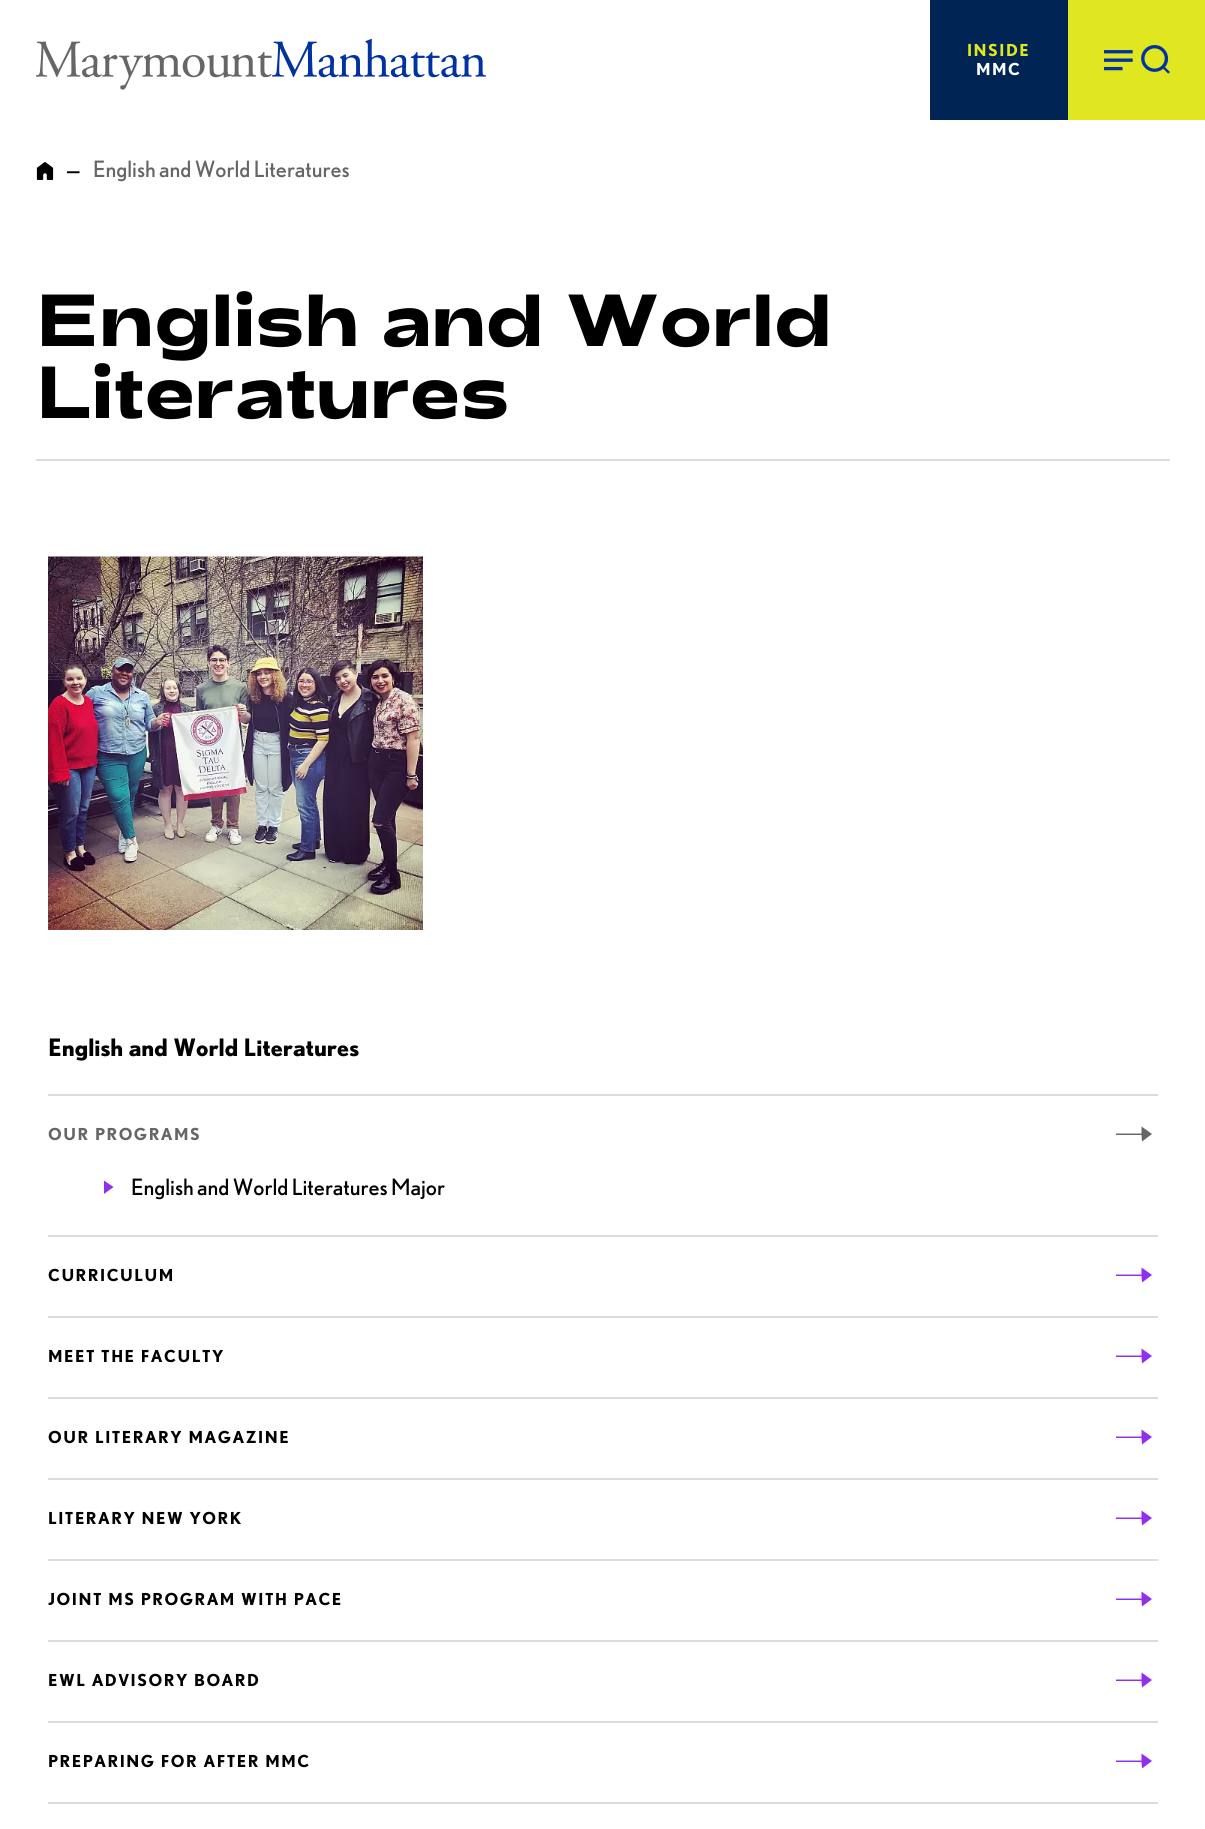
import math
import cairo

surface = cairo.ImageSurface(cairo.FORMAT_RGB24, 1205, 1829)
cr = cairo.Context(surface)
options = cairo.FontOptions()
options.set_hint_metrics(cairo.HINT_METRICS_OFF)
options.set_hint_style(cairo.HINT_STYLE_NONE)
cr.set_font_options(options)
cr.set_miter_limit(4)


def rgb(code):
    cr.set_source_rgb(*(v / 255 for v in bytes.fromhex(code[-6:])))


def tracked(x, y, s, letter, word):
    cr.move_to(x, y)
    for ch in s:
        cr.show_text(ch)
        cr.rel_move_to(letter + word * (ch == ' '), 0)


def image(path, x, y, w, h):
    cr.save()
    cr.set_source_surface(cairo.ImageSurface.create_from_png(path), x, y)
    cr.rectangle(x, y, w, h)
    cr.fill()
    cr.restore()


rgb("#ffffff")
cr.paint()
image("img/1.png", 36, 38, 450, 52)
rgb("#002453")
cr.rectangle(930, 0, 138, 120)
cr.fill()
rgb("#e0e721")
cr.rectangle(1068, 0, 137, 120)
cr.fill()
image("img/2.png", 1104, 45, 66, 29)
image("img/3.png", 36, 162, 18, 18)
rgb("#dbdbdb")
cr.rectangle(36, 459, 1134, 2)
cr.fill()
image("img/4.png", 48, 556, 375, 374)
cr.rectangle(48, 1094, 1110, 2)
cr.fill()
cr.rectangle(48, 1235, 1110, 2)
cr.fill()
rgb("#666666")
cr.new_path()
cr.move_to(1141.5, 1126.5)
cr.line_to(1152, 1134)
cr.line_to(1142, 1141.5)
cr.line_to(1141.5, 1135)
cr.line_to(1116, 1135)
cr.line_to(1116, 1133.5)
cr.line_to(1141.5, 1133.5)
cr.close_path()
cr.fill()
rgb("#912ff0")
cr.new_path()
cr.move_to(104, 1180.5)
cr.line_to(113.5, 1187)
cr.line_to(104, 1194)
cr.close_path()
cr.fill()
rgb("#dbdbdb")
cr.rectangle(48, 1316, 1110, 2)
cr.fill()
rgb("#912ff0")
cr.new_path()
cr.move_to(1141.5, 1267.5)
cr.line_to(1152, 1275)
cr.line_to(1142, 1282.5)
cr.line_to(1141.5, 1276)
cr.line_to(1116, 1276)
cr.line_to(1116, 1274.5)
cr.line_to(1141.5, 1274.5)
cr.close_path()
cr.fill()
rgb("#dbdbdb")
cr.rectangle(48, 1397, 1110, 2)
cr.fill()
rgb("#912ff0")
cr.new_path()
cr.move_to(1141.5, 1348.5)
cr.line_to(1152, 1356)
cr.line_to(1142, 1363.5)
cr.line_to(1141.5, 1357)
cr.line_to(1116, 1357)
cr.line_to(1116, 1355.5)
cr.line_to(1141.5, 1355.5)
cr.close_path()
cr.fill()
rgb("#dbdbdb")
cr.rectangle(48, 1478, 1110, 2)
cr.fill()
rgb("#912ff0")
cr.new_path()
cr.move_to(1141.5, 1429.5)
cr.line_to(1152, 1437)
cr.line_to(1142, 1444.5)
cr.line_to(1141.5, 1438)
cr.line_to(1116, 1438)
cr.line_to(1116, 1436.5)
cr.line_to(1141.5, 1436.5)
cr.close_path()
cr.fill()
rgb("#dbdbdb")
cr.rectangle(48, 1559, 1110, 2)
cr.fill()
rgb("#912ff0")
cr.new_path()
cr.move_to(1141.5, 1510.5)
cr.line_to(1152, 1518)
cr.line_to(1142, 1525.5)
cr.line_to(1141.5, 1519)
cr.line_to(1116, 1519)
cr.line_to(1116, 1517.5)
cr.line_to(1141.5, 1517.5)
cr.close_path()
cr.fill()
rgb("#dbdbdb")
cr.rectangle(48, 1640, 1110, 2)
cr.fill()
rgb("#912ff0")
cr.new_path()
cr.move_to(1141.5, 1591.5)
cr.line_to(1152, 1599)
cr.line_to(1142, 1606.5)
cr.line_to(1141.5, 1600)
cr.line_to(1116, 1600)
cr.line_to(1116, 1598.5)
cr.line_to(1141.5, 1598.5)
cr.close_path()
cr.fill()
rgb("#dbdbdb")
cr.rectangle(48, 1721, 1110, 2)
cr.fill()
rgb("#912ff0")
cr.new_path()
cr.move_to(1141.5, 1672.5)
cr.line_to(1152, 1680)
cr.line_to(1142, 1687.5)
cr.line_to(1141.5, 1681)
cr.line_to(1116, 1681)
cr.line_to(1116, 1679.5)
cr.line_to(1141.5, 1679.5)
cr.close_path()
cr.fill()
rgb("#dbdbdb")
cr.rectangle(48, 1802, 1110, 2)
cr.fill()
rgb("#912ff0")
cr.new_path()
cr.move_to(1141.5, 1753.5)
cr.line_to(1152, 1761)
cr.line_to(1142, 1768.5)
cr.line_to(1141.5, 1762)
cr.line_to(1116, 1762)
cr.line_to(1116, 1760.5)
cr.line_to(1141.5, 1760.5)
cr.close_path()
cr.fill()
cr.select_font_face("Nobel", cairo.FONT_SLANT_NORMAL, cairo.FONT_WEIGHT_BOLD)
cr.set_font_size(16.5)
rgb("#e0e721")
tracked(967, 56, "INSIDE", 1.5, 0)
rgb("#ffffff")
tracked(976, 75, "MMC", 1.5, 0)
cr.select_font_face("Nobel")
cr.set_font_size(22.5)
rgb("#000000")
cr.move_to(66, 177)
cr.show_text("—")
rgb("#666666")
cr.move_to(93, 177)
cr.show_text("English and World Literatures")
cr.select_font_face("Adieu", cairo.FONT_SLANT_NORMAL, cairo.FONT_WEIGHT_BOLD)
cr.set_font_size(73.5)
rgb("#000000")
cr.move_to(36, 346)
cr.show_text("English and World")
cr.move_to(36, 418)
cr.show_text("Literatures")
cr.select_font_face("Nobel", cairo.FONT_SLANT_NORMAL, cairo.FONT_WEIGHT_BOLD)
cr.set_font_size(24)
cr.move_to(48, 1056)
cr.show_text("English and World Literatures")
cr.set_font_size(16.5)
rgb("#666666")
tracked(48, 1140, "OUR PROGRAMS", 1.5, 0)
cr.select_font_face("Nobel")
cr.set_font_size(22.5)
rgb("#000000")
cr.move_to(131, 1195)
cr.show_text("English and World Literatures Major")
cr.select_font_face("Nobel", cairo.FONT_SLANT_NORMAL, cairo.FONT_WEIGHT_BOLD)
cr.set_font_size(16.5)
for x, y, s in [
    (48, 1281, "CURRICULUM"),
    (48, 1362, "MEET THE FACULTY"),
    (48, 1443, "OUR LITERARY MAGAZINE"),
    (48, 1524, "LITERARY NEW YORK"),
    (48, 1605, "JOINT MS PROGRAM WITH PACE"),
    (48, 1686, "EWL ADVISORY BOARD"),
    (48, 1767, "PREPARING FOR AFTER MMC"),
]:
    tracked(x, y, s, 1.5, 0)
surface.write_to_png("page.png")
